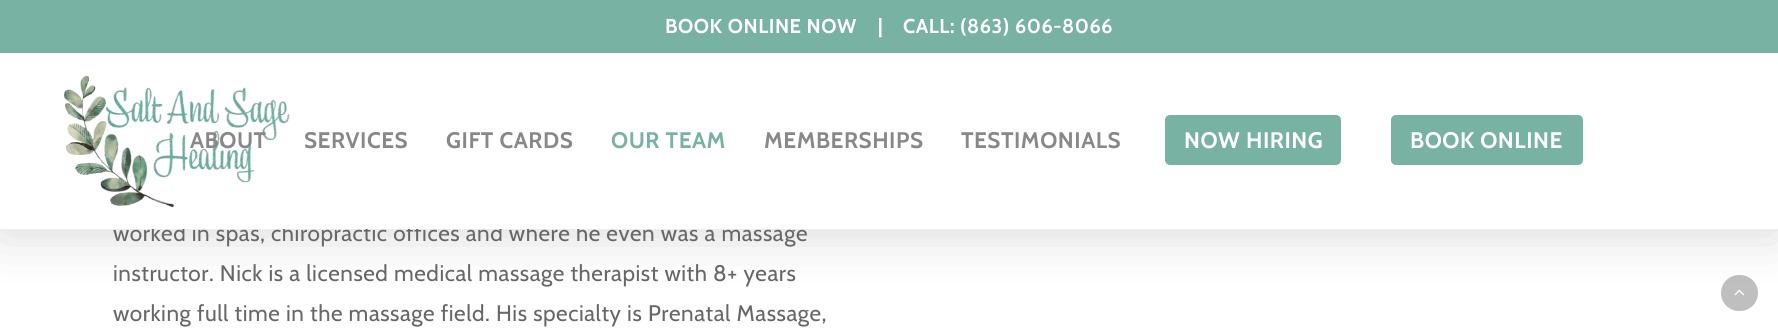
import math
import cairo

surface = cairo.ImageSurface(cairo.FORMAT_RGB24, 1778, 328)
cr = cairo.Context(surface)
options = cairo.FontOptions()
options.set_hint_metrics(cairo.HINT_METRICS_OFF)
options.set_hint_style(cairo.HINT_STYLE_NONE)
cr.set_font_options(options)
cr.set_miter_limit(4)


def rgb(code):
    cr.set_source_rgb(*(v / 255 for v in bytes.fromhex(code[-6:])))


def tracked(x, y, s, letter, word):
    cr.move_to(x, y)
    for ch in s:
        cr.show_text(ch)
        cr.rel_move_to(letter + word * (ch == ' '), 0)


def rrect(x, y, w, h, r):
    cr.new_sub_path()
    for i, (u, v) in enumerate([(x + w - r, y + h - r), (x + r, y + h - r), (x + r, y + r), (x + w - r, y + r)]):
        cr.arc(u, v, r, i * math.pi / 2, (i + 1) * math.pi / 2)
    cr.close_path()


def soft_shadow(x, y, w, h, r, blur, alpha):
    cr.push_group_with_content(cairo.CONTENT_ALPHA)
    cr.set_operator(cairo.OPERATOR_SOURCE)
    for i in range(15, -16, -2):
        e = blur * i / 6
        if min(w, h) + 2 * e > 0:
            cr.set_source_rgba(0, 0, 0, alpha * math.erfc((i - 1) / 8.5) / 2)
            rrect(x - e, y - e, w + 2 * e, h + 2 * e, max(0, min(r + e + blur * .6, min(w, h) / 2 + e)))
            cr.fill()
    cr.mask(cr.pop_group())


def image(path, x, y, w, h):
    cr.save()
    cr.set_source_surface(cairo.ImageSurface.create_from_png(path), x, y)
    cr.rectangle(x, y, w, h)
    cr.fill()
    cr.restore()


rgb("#ffffff")
cr.paint()
rgb("#bfbfbf")
rrect(1721, 275, 37, 36, 18)
cr.fill()
image("img/2.png", 1734, 289, 11, 7)
rgb("#000000")
soft_shadow(0, -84, 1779, 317, 0, 28, 0.15)
rgb("#78b2a3")
cr.rectangle(0, 0, 1778, 53)
cr.fill()
cr.select_font_face("Cabin", cairo.FONT_SLANT_NORMAL, cairo.FONT_WEIGHT_BOLD)
cr.set_font_size(20)
rgb("#ffffff")
for x, y, s in [
    (665, 33, "BOOK ONLINE NOW"),
    (878, 33, "|"),
    (903, 33, "CALL: (863) 606-8066"),
]:
    tracked(x, y, s, 0.55, 0)
cr.select_font_face("Cabin")
cr.set_font_size(22.5)
rgb("#676767")
tracked(113, 241, "worked in spas, chiropractic offices and where he even was a massage", 0.55, 0)
rgb("#ffffff")
cr.rectangle(0, 53, 1778, 176)
cr.fill()
rgb("#78b2a3")
rrect(1391, 115, 192, 50, 5)
cr.fill()
cr.select_font_face("Cabin", cairo.FONT_SLANT_NORMAL, cairo.FONT_WEIGHT_BOLD)
rgb("#ffffff")
tracked(1410, 148, "BOOK ONLINE", 0.55, 0)
rgb("#78b2a3")
rrect(1165, 115, 176, 50, 5)
cr.fill()
rgb("#ffffff")
tracked(1184, 148, "NOW HIRING", 0.55, 0)
rgb("#888888")
tracked(961, 148, "TESTIMONIALS", 0.55, 0)
tracked(764, 148, "MEMBERSHIPS", 0.55, 0)
rgb("#78b2a3")
tracked(611, 148, "OUR TEAM", 0.55, 0)
rgb("#888888")
tracked(446, 148, "GIFT CARDS", 0.55, 0)
tracked(304, 148, "SERVICES", 0.55, 0)
image("img/1.png", 64, 75, 226, 133)
tracked(190, 148, "ABOUT", 0.55, 0)
cr.select_font_face("Cabin")
rgb("#676767")
tracked(113, 281, "instructor. Nick is a licensed medical massage therapist with 8+ years", 0.55, 0)
tracked(113, 321, "working full time in the massage field. His specialty is Prenatal Massage,", 0.55, 0)
surface.write_to_png("page.png")
